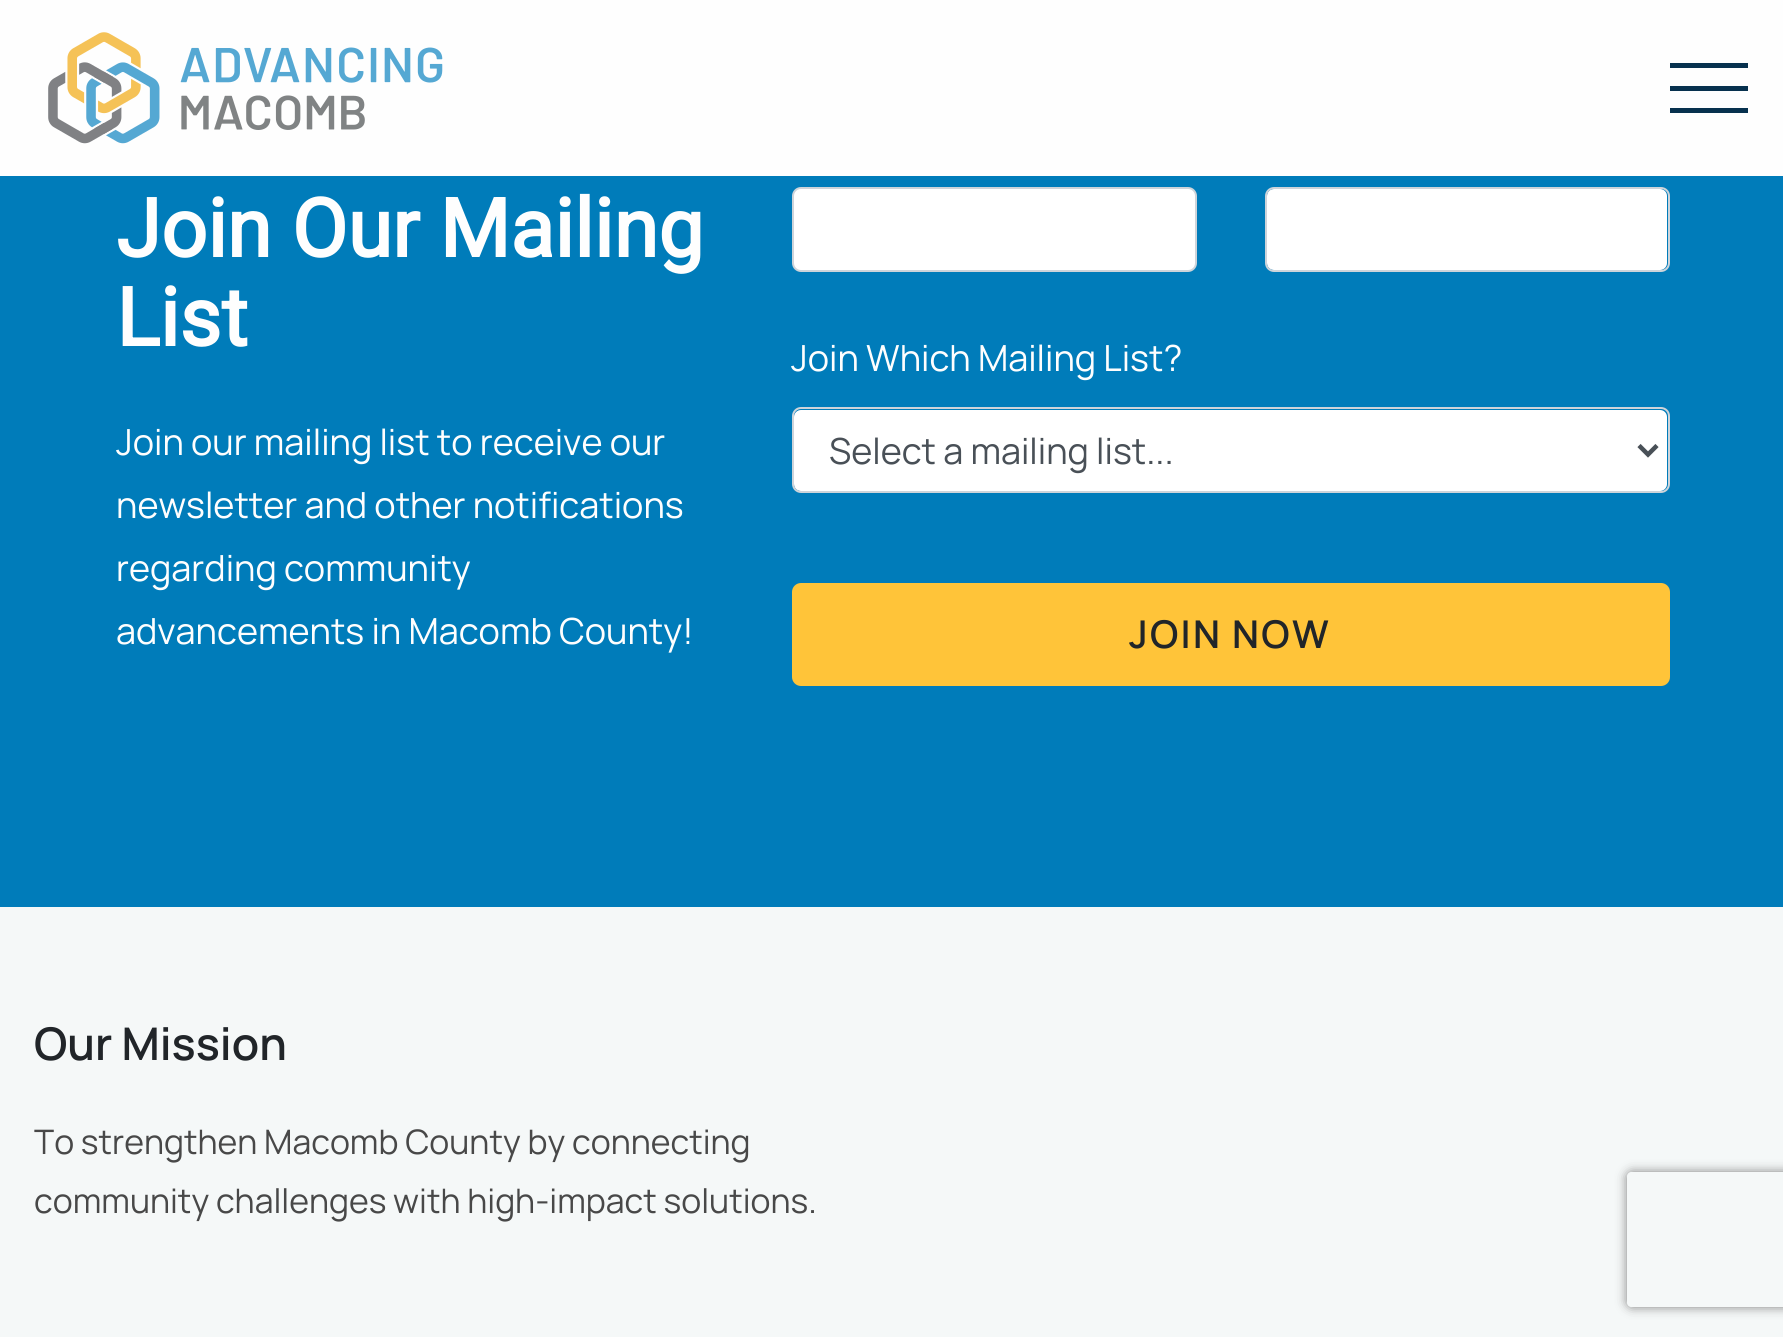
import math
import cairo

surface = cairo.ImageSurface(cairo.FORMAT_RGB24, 1783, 1337)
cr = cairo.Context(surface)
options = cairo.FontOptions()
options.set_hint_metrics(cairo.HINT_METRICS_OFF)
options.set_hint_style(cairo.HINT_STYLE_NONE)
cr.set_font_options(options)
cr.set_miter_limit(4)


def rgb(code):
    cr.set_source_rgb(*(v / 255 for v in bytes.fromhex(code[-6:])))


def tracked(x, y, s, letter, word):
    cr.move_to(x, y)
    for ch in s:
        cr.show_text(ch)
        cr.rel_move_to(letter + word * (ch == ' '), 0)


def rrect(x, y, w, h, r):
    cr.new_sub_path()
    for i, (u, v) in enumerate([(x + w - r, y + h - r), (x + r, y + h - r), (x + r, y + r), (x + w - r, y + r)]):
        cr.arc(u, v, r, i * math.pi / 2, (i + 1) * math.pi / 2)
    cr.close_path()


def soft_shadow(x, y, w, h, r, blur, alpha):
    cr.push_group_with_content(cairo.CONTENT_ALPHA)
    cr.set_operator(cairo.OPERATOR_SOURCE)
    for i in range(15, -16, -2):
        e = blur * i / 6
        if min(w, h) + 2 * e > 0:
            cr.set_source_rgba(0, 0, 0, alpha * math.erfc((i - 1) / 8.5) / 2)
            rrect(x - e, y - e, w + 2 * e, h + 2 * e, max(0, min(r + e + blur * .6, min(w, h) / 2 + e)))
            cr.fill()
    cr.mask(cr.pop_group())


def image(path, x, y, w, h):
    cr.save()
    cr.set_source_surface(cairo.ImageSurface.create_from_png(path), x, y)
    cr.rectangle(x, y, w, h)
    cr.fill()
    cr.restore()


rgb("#007cba")
cr.paint()
rgb("#fefefe")
cr.rectangle(0, 0, 1783, 176)
cr.fill()
image("img/1.png", 48, 32, 395, 112)
for x, y, w, h, color in [
    (1670, 63, 78, 5, "#07314e"),
    (1670, 86, 78, 5, "#07314e"),
    (1670, 108, 78, 5, "#07314e"),
]:
    rgb(color)
    cr.rectangle(x, y, w, h)
    cr.fill()
rgb("#ffffff")
rrect(793, 188, 403, 83, 8)
cr.fill_preserve()
rgb("#ced4da")
cr.stroke()
rgb("#ffffff")
rrect(1267, 189, 400, 81, 7)
cr.fill()
rrect(1266, 188, 403, 83, 8)
rgb("#ced4da")
cr.stroke()
rgb("#ffffff")
rrect(794, 410, 873, 81, 7)
cr.fill()
rrect(793, 408, 876, 84, 8)
rgb("#ced4da")
cr.stroke()
cr.new_path()
cr.move_to(1639, 445.5)
cr.line_to(1648, 454.5)
cr.line_to(1657, 445.5)
rgb("#495057")
cr.set_line_width(4.5)
cr.stroke()
rgb("#ffc439")
rrect(793, 584, 876, 101, 8)
cr.fill_preserve()
cr.set_line_width(2)
cr.stroke()
rgb("#f5f8f8")
cr.rectangle(0, 907, 1783, 430)
cr.fill()
cr.save()
cr.set_fill_rule(cairo.FILL_RULE_EVEN_ODD)
cr.new_path()
cr.move_to(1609, 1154)
cr.line_to(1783, 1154)
cr.line_to(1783, 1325)
cr.line_to(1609, 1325)
cr.close_path()
cr.move_to(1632, 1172)
cr.line_to(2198, 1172)
cr.curve_to(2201, 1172, 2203, 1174, 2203, 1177)
cr.line_to(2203, 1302)
cr.curve_to(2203, 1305, 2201, 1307, 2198, 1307)
cr.line_to(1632, 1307)
cr.curve_to(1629, 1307, 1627, 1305, 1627, 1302)
cr.line_to(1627, 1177)
cr.curve_to(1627, 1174, 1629, 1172, 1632, 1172)
cr.close_path()
cr.clip()
rgb("#808080")
soft_shadow(1627, 1172, 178, 135, 5, 5.5, 1)
cr.restore()
cr.select_font_face("Roboto", cairo.FONT_SLANT_NORMAL, cairo.FONT_WEIGHT_BOLD)
cr.set_font_size(81)
rgb("#fefefe")
cr.move_to(116, 257)
cr.show_text("Join Our Mailing")
cr.move_to(116, 346)
cr.show_text("List")
cr.select_font_face("Manrope")
cr.set_font_size(36)
for x, y, s in [
    (116, 455, "Join our mailing list to receive our"),
    (116, 518, "newsletter and other notifications"),
    (116, 581, "regarding community"),
    (116, 644, "advancements in Macomb County!"),
    (791, 371, "Join Which Mailing List?"),
]:
    cr.move_to(x, y)
    cr.show_text(s)
rgb("#495057")
cr.move_to(829, 464)
cr.show_text("Select a mailing list...")
cr.select_font_face("Manrope SemiBold")
cr.set_font_size(38.25)
rgb("#212529")
tracked(1129, 648, "JOIN NOW", 2.25, 0)
cr.set_font_size(45)
cr.move_to(34, 1060)
cr.show_text("Our Mission")
cr.select_font_face("Manrope")
cr.set_font_size(33.75)
rgb("#484848")
cr.move_to(34, 1154)
cr.show_text("To strengthen Macomb County by connecting")
cr.move_to(34, 1213)
cr.show_text("community challenges with high-impact solutions.")
surface.write_to_png("page.png")
